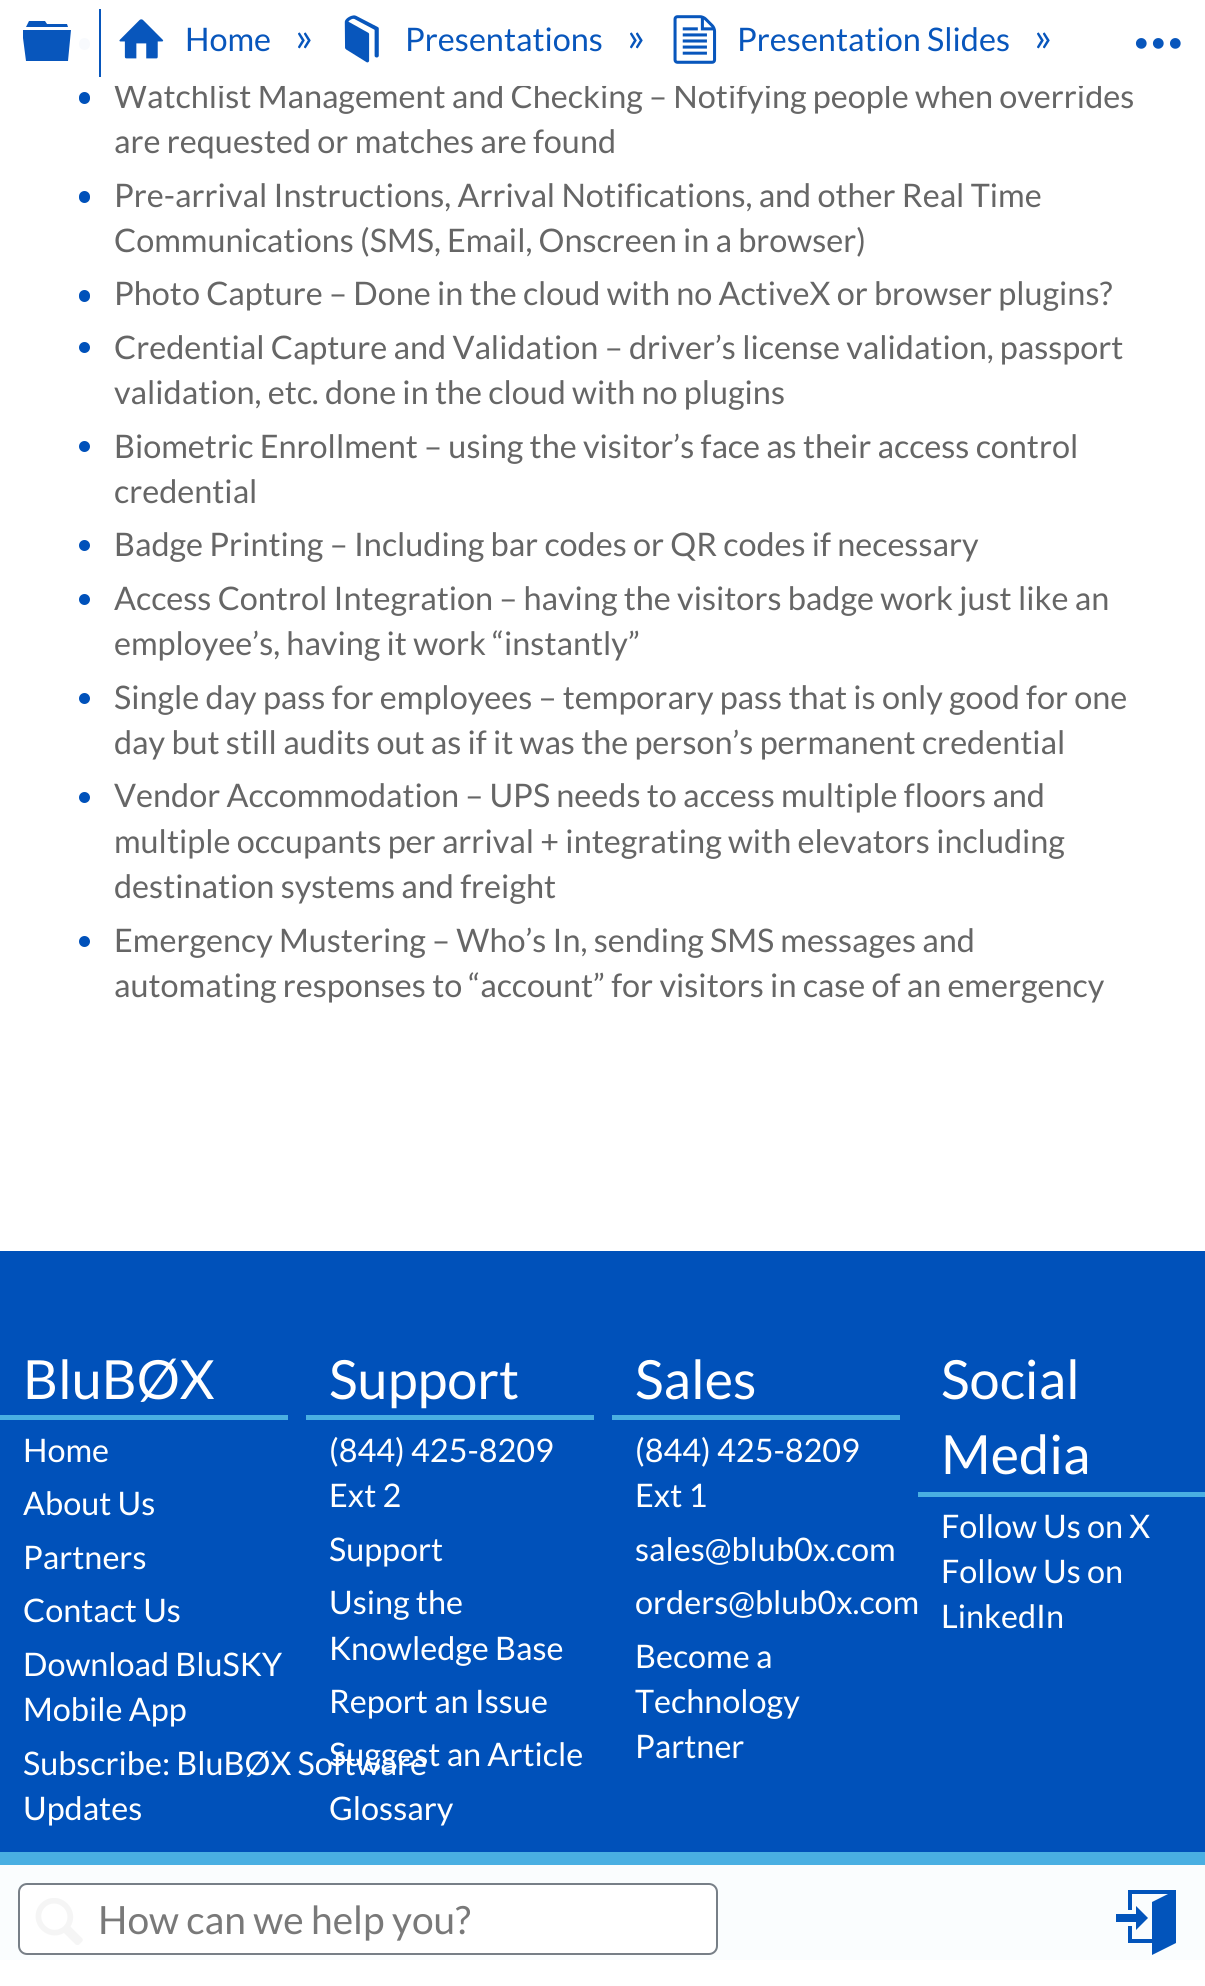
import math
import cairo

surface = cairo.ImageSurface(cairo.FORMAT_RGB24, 1205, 1986)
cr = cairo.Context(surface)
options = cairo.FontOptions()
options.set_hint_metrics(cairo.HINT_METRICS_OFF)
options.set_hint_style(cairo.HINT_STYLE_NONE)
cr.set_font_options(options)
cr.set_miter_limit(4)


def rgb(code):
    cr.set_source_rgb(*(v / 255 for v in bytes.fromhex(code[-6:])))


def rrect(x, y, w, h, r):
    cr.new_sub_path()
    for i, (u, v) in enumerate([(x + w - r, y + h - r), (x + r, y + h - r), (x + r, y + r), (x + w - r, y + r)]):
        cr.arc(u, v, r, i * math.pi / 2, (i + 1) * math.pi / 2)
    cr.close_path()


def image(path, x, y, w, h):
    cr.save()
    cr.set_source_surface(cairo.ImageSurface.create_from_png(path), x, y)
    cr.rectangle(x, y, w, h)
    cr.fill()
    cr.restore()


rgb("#ffffff")
cr.paint()
rgb("#0856bc")
cr.set_fill_rule(cairo.FILL_RULE_EVEN_ODD)
cr.new_path()
cr.move_to(23, 38)
cr.line_to(23, 30)
cr.line_to(71, 30)
cr.line_to(68, 61)
cr.line_to(26, 61)
cr.close_path()
cr.move_to(67, 24)
cr.line_to(47, 24)
cr.line_to(45, 21)
cr.line_to(29, 21)
cr.line_to(26, 27)
cr.line_to(68, 27)
cr.close_path()
cr.fill()
image("img/4.png", 1135, 38, 46, 11)
rgb("#fafdfe")
cr.rectangle(0, 1865, 1205, 95)
cr.fill()
cr.set_source_rgba(1, 1, 1, 0.97)
rrect(19, 1884, 698, 70, 8)
cr.fill_preserve()
rgb("#777f87")
cr.stroke()
image("img/5.png", 35, 1898, 48, 47)
rgb("#0254bb")
cr.set_fill_rule(cairo.FILL_RULE_WINDING)
cr.new_path()
cr.move_to(1136, 1922)
cr.line_to(1116, 1922)
cr.line_to(1116, 1914)
cr.line_to(1136, 1914)
cr.line_to(1136, 1906)
cr.line_to(1148, 1918)
cr.line_to(1136, 1930)
cr.close_path()
cr.move_to(1176, 1890)
cr.line_to(1176, 1943)
cr.line_to(1152, 1955)
cr.line_to(1152, 1943)
cr.line_to(1128, 1943)
cr.line_to(1128, 1926)
cr.line_to(1132, 1926)
cr.line_to(1132, 1939)
cr.line_to(1152, 1939)
cr.line_to(1152, 1902)
cr.line_to(1168, 1894)
cr.line_to(1132, 1894)
cr.line_to(1132, 1910)
cr.line_to(1128, 1910)
cr.line_to(1128, 1890)
cr.close_path()
cr.fill()
rgb("#0051ba")
rrect(79, 38, 11, 12, 5.5)
cr.fill()
rrect(79, 92, 11, 12, 5.5)
cr.fill()
rrect(79, 191, 11, 12, 5.5)
cr.fill()
rrect(79, 290, 11, 12, 5.5)
cr.fill()
cr.arc(84.5, 347.5, 5.5, 0, 2 * math.pi)
cr.fill()
cr.arc(84.5, 446.5, 5.5, 0, 2 * math.pi)
cr.fill()
cr.arc(84.5, 545.5, 5.5, 0, 2 * math.pi)
cr.fill()
cr.arc(84.5, 599.5, 5.5, 0, 2 * math.pi)
cr.fill()
cr.arc(84.5, 698.5, 5.5, 0, 2 * math.pi)
cr.fill()
cr.arc(84.5, 797.5, 5.5, 0, 2 * math.pi)
cr.fill()
cr.arc(84.5, 941.5, 5.5, 0, 2 * math.pi)
cr.fill()
for x, y, w, h, color in [
    (0, 1251, 1205, 601, "#0051ba"),
    (0, 1415, 288, 5, "#49afe2"),
    (306, 1415, 288, 5, "#49afe2"),
    (612, 1415, 288, 5, "#49afe2"),
    (918, 1492, 287, 5, "#49afe2"),
    (0, 1852, 1205, 13, "#49afe2"),
]:
    rgb(color)
    cr.rectangle(x, y, w, h)
    cr.fill()
cr.select_font_face("Lato")
cr.set_font_size(38.9)
rgb("#797979")
cr.move_to(98, 1934)
cr.show_text("How can we help you?")
cr.set_font_size(32.4)
rgb("#666666")
cr.move_to(114, 108)
cr.show_text("Watchlist Management and Checking – Notifying people when overrides")
cr.set_source_rgba(1, 1, 1, 0.97)
cr.rectangle(79, 38, 1022, 48)
cr.fill()
cr.set_font_size(40)
rgb("#0856bc")
cr.move_to(1034, 51)
cr.show_text("»")
cr.set_font_size(32.4)
cr.move_to(737, 51)
cr.show_text("Presentation Slides")
image("img/3.png", 673, 15, 44, 49)
cr.set_font_size(40)
cr.move_to(627, 51)
cr.show_text("»")
cr.set_font_size(32.4)
cr.move_to(405, 51)
cr.show_text("Presentations")
image("img/2.png", 344, 15, 35, 48)
cr.set_font_size(40)
cr.move_to(295, 51)
cr.show_text("»")
cr.set_font_size(32.4)
cr.move_to(185, 51)
cr.show_text("Home")
image("img/1.png", 119, 19, 45, 40)
cr.rectangle(99, 9, 2, 68)
cr.fill()
rgb("#666666")
for x, y, s in [
    (114, 153, "are requested or matches are found"),
    (114, 207, "Pre-arrival Instructions, Arrival Notifications, and other Real Time"),
    (114, 252, "Communications (SMS, Email, Onscreen in a browser)"),
    (114, 305, "Photo Capture – Done in the cloud with no ActiveX or browser plugins?"),
    (114, 359, "Credential Capture and Validation – driver’s license validation, passport"),
    (114, 404, "validation, etc. done in the cloud with no plugins"),
    (114, 458, "Biometric Enrollment – using the visitor’s face as their access control"),
    (114, 503, "credential"),
    (114, 556, "Badge Printing – Including bar codes or QR codes if necessary"),
    (114, 610, "Access Control Integration – having the visitors badge work just like an"),
    (114, 655, "employee’s, having it work “instantly”"),
    (114, 709, "Single day pass for employees – temporary pass that is only good for one"),
    (114, 754, "day but still audits out as if it was the person’s permanent credential"),
    (114, 807, "Vendor Accommodation – UPS needs to access multiple floors and"),
    (114, 853, "multiple occupants per arrival + integrating with elevators including"),
    (114, 898, "destination systems and freight"),
    (114, 952, "Emergency Mustering – Who’s In, sending SMS messages and"),
    (114, 997, "automating responses to “account” for visitors in case of an emergency"),
]:
    cr.move_to(x, y)
    cr.show_text(s)
cr.set_font_size(54)
rgb("#ffffff")
cr.move_to(23, 1399)
cr.show_text("BluBØX")
cr.set_font_size(32.4)
for x, y, s in [
    (23, 1462, "Home"),
    (23, 1515, "About Us"),
    (23, 1569, "Partners"),
    (23, 1622, "Contact Us"),
    (23, 1676, "Download BluSKY"),
    (23, 1721, "Mobile App"),
    (23, 1775, "Subscribe: BluBØX Software"),
    (23, 1820, "Updates"),
]:
    cr.move_to(x, y)
    cr.show_text(s)
cr.set_font_size(54)
cr.move_to(329, 1399)
cr.show_text("Support")
cr.set_font_size(32.4)
for x, y, s in [
    (329, 1462, "(844) 425-8209"),
    (329, 1507, "Ext 2"),
    (329, 1561, "Support"),
    (329, 1614, "Using the"),
    (329, 1660, "Knowledge Base"),
    (329, 1713, "Report an Issue"),
    (329, 1766, "Suggest an Article"),
    (329, 1820, "Glossary"),
]:
    cr.move_to(x, y)
    cr.show_text(s)
cr.set_font_size(54)
cr.move_to(635, 1399)
cr.show_text("Sales")
cr.set_font_size(32.4)
for x, y, s in [
    (635, 1462, "(844) 425-8209"),
    (635, 1507, "Ext 1"),
    (635, 1561, "sales@blub0x.com"),
    (635, 1614, "orders@blub0x.com"),
    (635, 1668, "Become a"),
    (635, 1713, "Technology"),
    (635, 1758, "Partner"),
]:
    cr.move_to(x, y)
    cr.show_text(s)
cr.set_font_size(54)
cr.move_to(941, 1399)
cr.show_text("Social")
cr.move_to(941, 1474)
cr.show_text("Media")
cr.set_font_size(32.4)
for x, y, s in [
    (941, 1538, "Follow Us on X"),
    (941, 1583, "Follow Us on"),
    (941, 1628, "LinkedIn"),
]:
    cr.move_to(x, y)
    cr.show_text(s)
surface.write_to_png("page.png")
